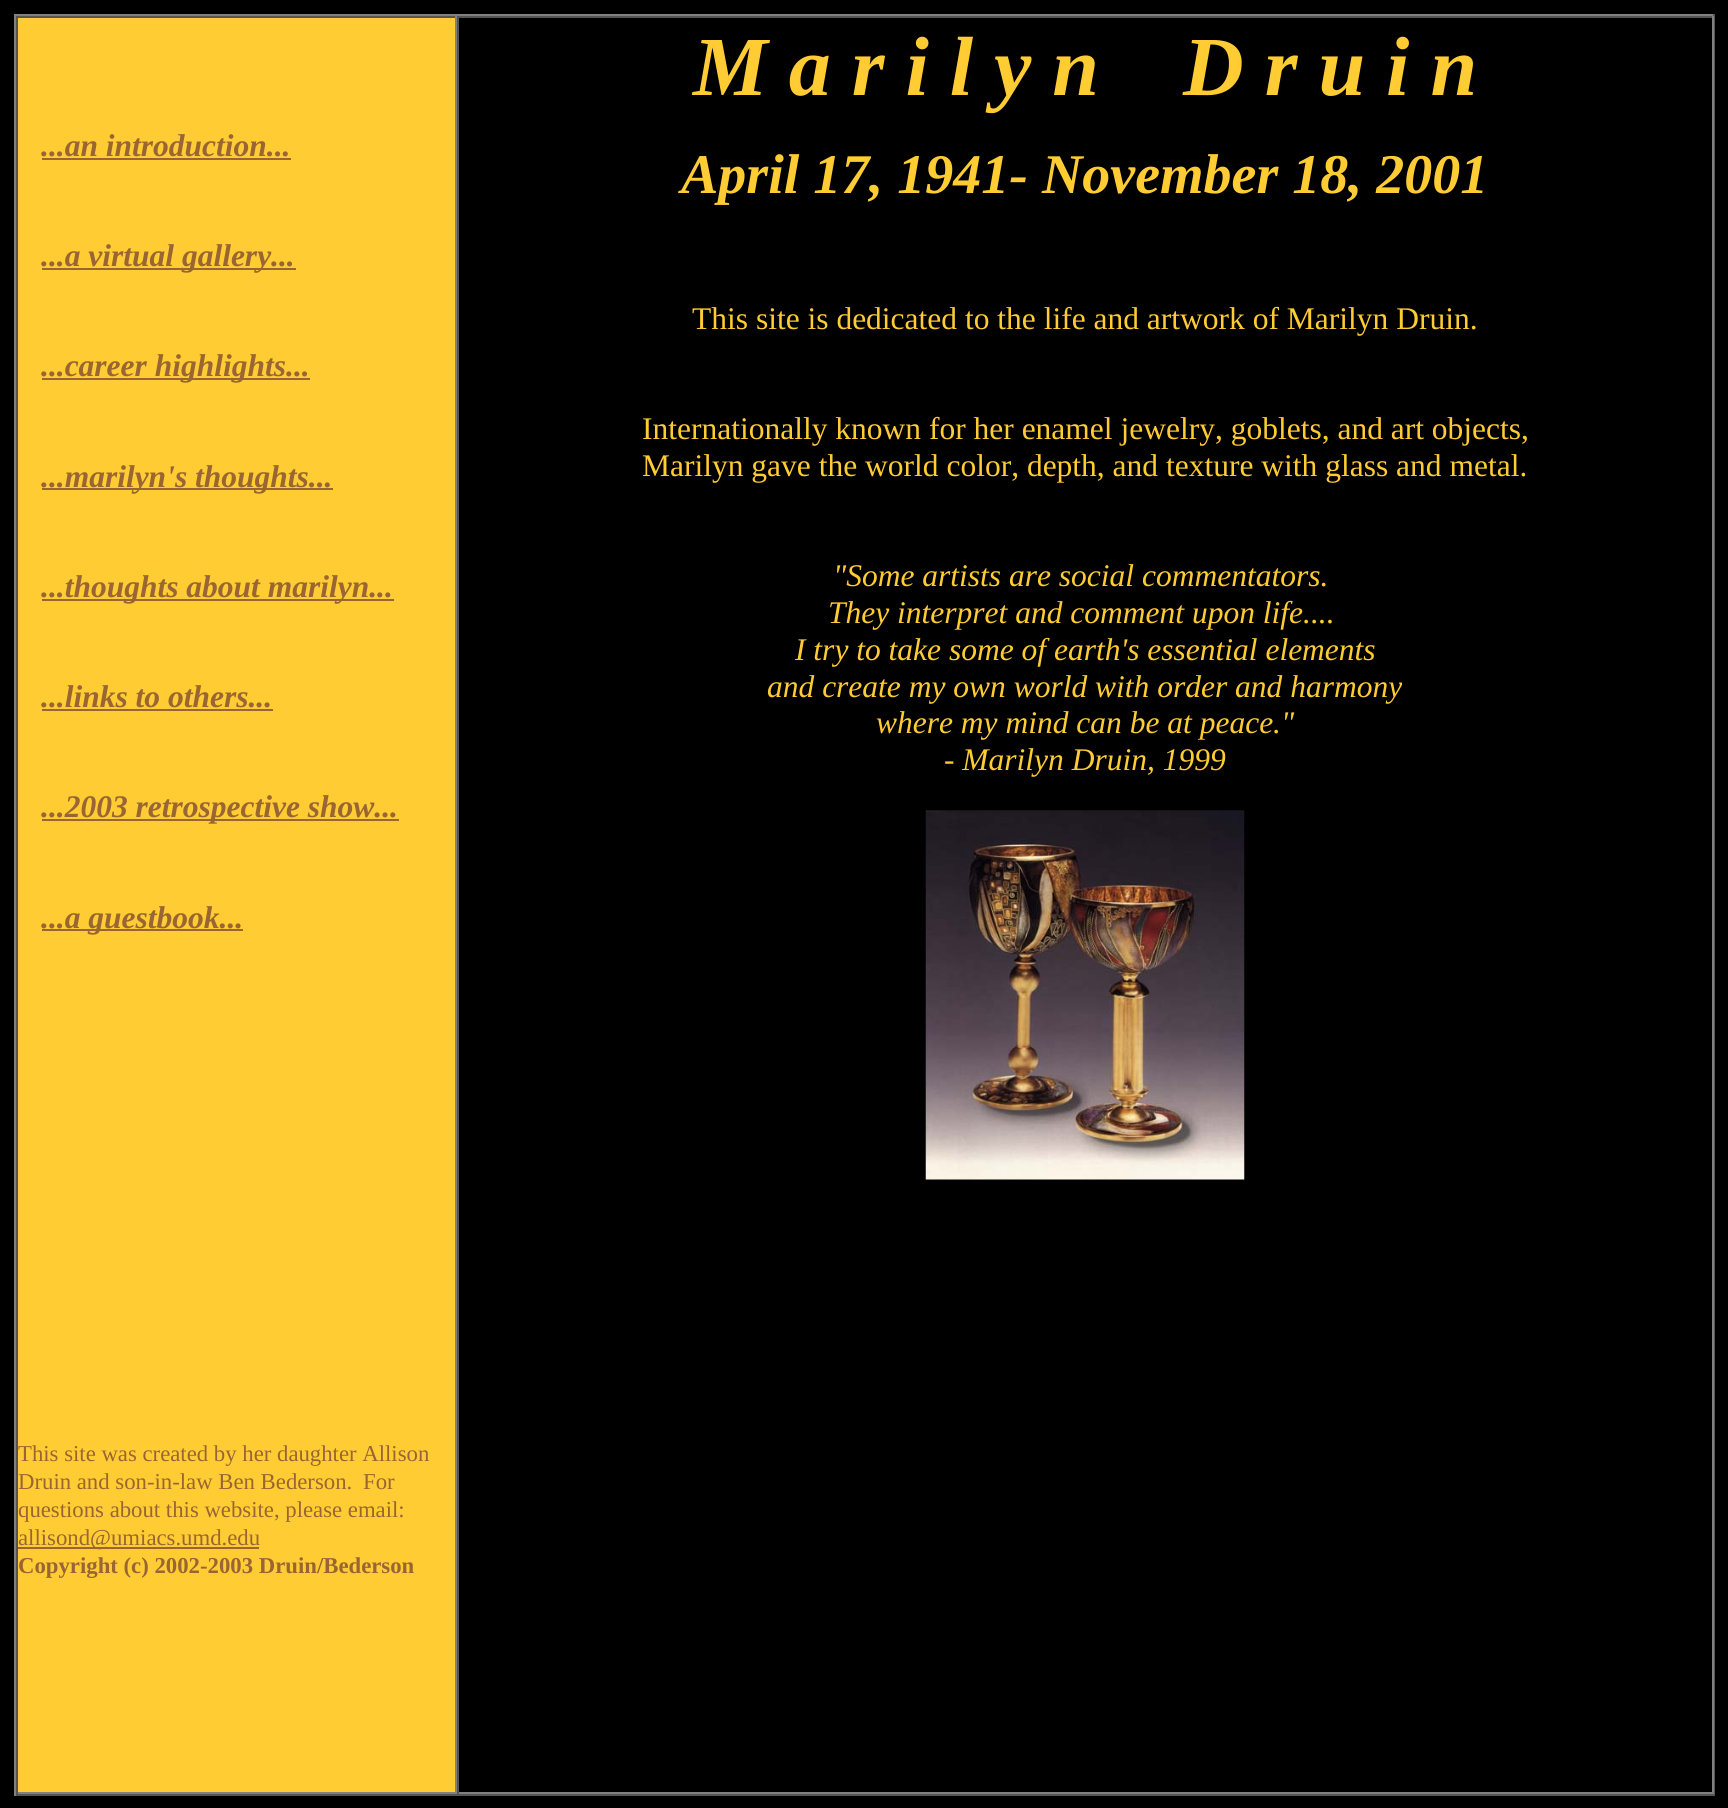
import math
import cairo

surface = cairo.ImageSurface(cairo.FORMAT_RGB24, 1728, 1808)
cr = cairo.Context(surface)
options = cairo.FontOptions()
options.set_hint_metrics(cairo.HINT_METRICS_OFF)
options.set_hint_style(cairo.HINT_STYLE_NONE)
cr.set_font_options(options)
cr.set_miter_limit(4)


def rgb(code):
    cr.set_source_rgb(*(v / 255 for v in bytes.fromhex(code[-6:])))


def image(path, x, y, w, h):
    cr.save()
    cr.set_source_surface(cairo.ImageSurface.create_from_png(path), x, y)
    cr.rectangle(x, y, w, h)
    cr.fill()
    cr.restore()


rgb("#000000")
cr.paint()
for x, y, w, h, color in [
    (14, 14, 1701, 2, "#808080"),
    (1713, 14, 2, 1782, "#555555"),
    (14, 1794, 1701, 2, "#555555"),
    (14, 14, 2, 1782, "#808080"),
    (18, 18, 437, 1774, "#ffcc33"),
    (16, 16, 1697, 2, "#555555"),
    (455, 16, 2, 1778, "#808080"),
    (16, 1792, 441, 2, "#808080"),
    (16, 16, 2, 1778, "#555555"),
    (42, 158, 249, 2, "#996633"),
    (42, 268, 254, 2, "#996633"),
    (42, 378, 268, 2, "#996633"),
    (42, 488, 291, 2, "#996633"),
    (42, 599, 352, 2, "#996633"),
    (42, 709, 231, 2, "#996633"),
    (42, 819, 357, 2, "#996633"),
    (42, 929, 201, 2, "#996633"),
    (18, 1547, 241, 2, "#996633"),
    (1712, 16, 2, 1778, "#808080"),
    (457, 1792, 1256, 2, "#808080"),
    (457, 16, 2, 1778, "#555555"),
]:
    rgb(color)
    cr.rectangle(x, y, w, h)
    cr.fill()
image("img/1.png", 925, 810, 320, 370)
cr.select_font_face("Liberation Serif", cairo.FONT_SLANT_ITALIC, cairo.FONT_WEIGHT_BOLD)
cr.set_font_size(31.5)
rgb("#996633")
for x, y, s in [
    (41, 156, "...an introduction..."),
    (41, 266, "...a virtual gallery..."),
    (41, 376, "...career highlights..."),
    (41, 487, "...marilyn's thoughts..."),
    (41, 597, "...thoughts about marilyn..."),
    (41, 707, "...links to others..."),
    (41, 817, "...2003 retrospective show..."),
    (41, 928, "...a guestbook..."),
]:
    cr.move_to(x, y)
    cr.show_text(s)
cr.select_font_face("Liberation Serif")
cr.set_font_size(22.75)
for x, y, s in [
    (18, 1461, "This site was created by her daughter Allison"),
    (18, 1489, "Druin and son-in-law Ben Bederson."),
    (363, 1489, "For"),
    (18, 1517, "questions about this website, please email:"),
    (18, 1545, "allisond@umiacs.umd.edu"),
]:
    cr.move_to(x, y)
    cr.show_text(s)
cr.select_font_face("Liberation Serif", cairo.FONT_SLANT_NORMAL, cairo.FONT_WEIGHT_BOLD)
cr.move_to(18, 1573)
cr.show_text("Copyright (c) 2002-2003 Druin/Bederson")
cr.select_font_face("Liberation Serif", cairo.FONT_SLANT_ITALIC, cairo.FONT_WEIGHT_BOLD)
cr.set_font_size(84)
rgb("#ffcc33")
cr.move_to(693, 95)
cr.show_text("M a r i l y n    D r u i n")
cr.set_font_size(56)
cr.move_to(681, 193)
cr.show_text("April 17, 1941- November 18, 2001")
cr.select_font_face("Liberation Serif")
cr.set_font_size(31.5)
for x, y, s in [
    (692, 329, "This site is dedicated to the life and artwork of Marilyn Druin."),
    (642, 439, "Internationally known for her enamel jewelry, goblets, and art objects,"),
    (642, 476, "Marilyn gave the world color, depth, and texture with glass and metal."),
]:
    cr.move_to(x, y)
    cr.show_text(s)
cr.select_font_face("Liberation Serif", cairo.FONT_SLANT_ITALIC)
for x, y, s in [
    (833, 586, "\"Some artists are social commentators."),
    (828, 623, "They interpret and comment upon life...."),
    (795, 660, "I try to take some of earth's essential elements"),
    (767, 697, "and create my own world with order and harmony"),
    (876, 733, "where my mind can be at peace.\""),
    (944, 770, "- Marilyn Druin, 1999"),
]:
    cr.move_to(x, y)
    cr.show_text(s)
surface.write_to_png("page.png")
